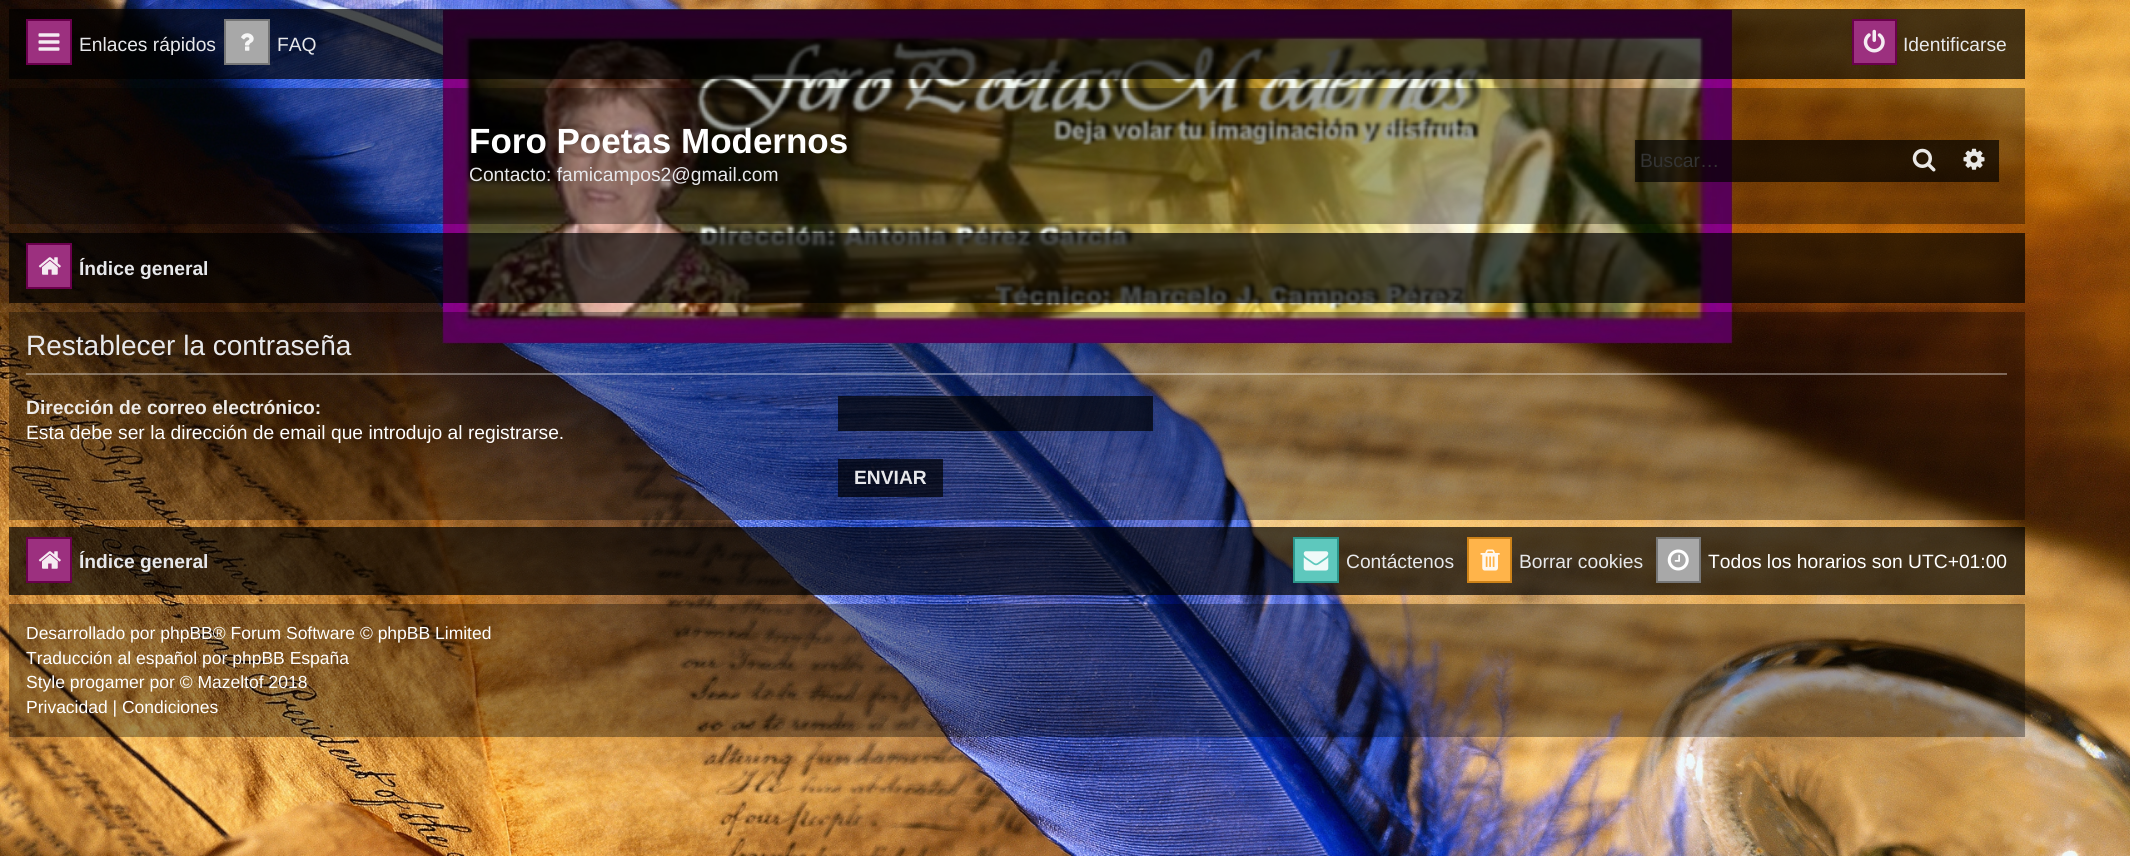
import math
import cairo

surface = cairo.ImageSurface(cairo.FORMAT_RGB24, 2130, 856)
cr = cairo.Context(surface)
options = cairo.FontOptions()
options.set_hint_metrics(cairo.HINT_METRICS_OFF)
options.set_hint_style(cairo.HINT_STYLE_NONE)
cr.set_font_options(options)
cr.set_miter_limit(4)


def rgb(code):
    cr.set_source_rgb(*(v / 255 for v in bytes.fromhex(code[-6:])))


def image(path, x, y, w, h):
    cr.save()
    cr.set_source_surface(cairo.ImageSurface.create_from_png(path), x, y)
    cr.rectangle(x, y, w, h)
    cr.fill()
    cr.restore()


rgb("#ffffff")
cr.paint()
image("img/1.png", 0, 737, 2130, 119)
image("img/2.png", 0, 0, 2130, 737)
cr.set_source_rgba(0, 0, 0, 0.7)
cr.rectangle(9, 9, 2016, 70)
cr.fill()
rgb("#9c307f")
cr.rectangle(27, 20, 44, 44)
cr.fill_preserve()
rgb("#6a004d")
cr.stroke()
image("img/3.png", 38, 33, 22, 18)
rgb("#a8a8a8")
cr.rectangle(225, 20, 44, 44)
cr.fill_preserve()
rgb("#767676")
cr.stroke()
image("img/4.png", 241, 33, 13, 18)
rgb("#9c307f")
cr.rectangle(1853, 20, 43, 44)
cr.fill_preserve()
rgb("#6a004d")
cr.stroke()
image("img/5.png", 1863, 29, 22, 24)
cr.set_source_rgba(0, 0, 0, 0.35)
cr.rectangle(9, 88, 2016, 136)
cr.fill()
cr.set_source_rgba(0, 0, 0, 0.7)
cr.rectangle(1635, 140, 262, 42)
cr.fill()
cr.rectangle(1897, 140, 53, 42)
cr.fill()
image("img/6.png", 1912, 148, 24, 24)
cr.rectangle(1950, 140, 49, 42)
cr.fill()
image("img/7.png", 1963, 148, 22, 22)
cr.rectangle(9, 233, 2016, 70)
cr.fill()
rgb("#9c307f")
cr.rectangle(27, 244, 44, 44)
cr.fill_preserve()
rgb("#6a004d")
cr.stroke()
image("img/8.png", 38, 257, 23, 18)
cr.set_source_rgba(0, 0, 0, 0.35)
cr.rectangle(9, 312, 2016, 208)
cr.fill()
cr.set_source_rgba(1, 1, 1, 0.35)
cr.rectangle(26, 373, 1981, 2)
cr.fill()
cr.set_source_rgba(0, 0, 0, 0.7)
cr.rectangle(838, 396, 315, 35)
cr.fill()
cr.rectangle(838, 459, 105, 38)
cr.fill()
cr.rectangle(9, 527, 2016, 68)
cr.fill()
rgb("#9c307f")
cr.rectangle(27, 538, 44, 44)
cr.fill_preserve()
rgb("#6a004d")
cr.stroke()
image("img/8.png", 38, 551, 23, 18)
rgb("#5ec8bd")
cr.rectangle(1294, 538, 44, 44)
cr.fill_preserve()
rgb("#2c968b")
cr.stroke()
image("img/9.png", 1303, 551, 26, 20)
rgb("#ffb44a")
cr.rectangle(1468, 538, 43, 44)
cr.fill_preserve()
rgb("#cd8218")
cr.stroke()
image("img/10.png", 1480, 549, 20, 22)
rgb("#a8a8a8")
cr.rectangle(1657, 538, 43, 44)
cr.fill_preserve()
rgb("#767676")
cr.stroke()
image("img/11.png", 1667, 549, 22, 22)
cr.set_source_rgba(0, 0, 0, 0.35)
cr.rectangle(9, 604, 2016, 133)
cr.fill()
cr.select_font_face("Liberation Sans")
cr.set_font_size(19.25)
rgb("#e7e8eb")
for x, y, s in [
    (79, 51, "Enlaces rápidos"),
    (277, 51, "FAQ"),
    (1903, 51, "Identificarse"),
]:
    cr.move_to(x, y)
    cr.show_text(s)
cr.select_font_face("Liberation Sans", cairo.FONT_SLANT_NORMAL, cairo.FONT_WEIGHT_BOLD)
cr.set_font_size(35)
rgb("#ffffff")
cr.move_to(469, 153)
cr.show_text("Foro Poetas Modernos")
cr.select_font_face("Liberation Sans")
cr.set_font_size(19.25)
rgb("#e7e8eb")
cr.move_to(469, 181)
cr.show_text("Contacto: famicampos2@gmail.com")
rgb("#333333")
cr.move_to(1640, 167)
cr.show_text("Buscar…")
cr.select_font_face("Liberation Sans", cairo.FONT_SLANT_NORMAL, cairo.FONT_WEIGHT_BOLD)
rgb("#e7e8eb")
cr.move_to(79, 275)
cr.show_text("Índice general")
cr.select_font_face("Liberation Sans")
cr.set_font_size(28)
cr.move_to(26, 355)
cr.show_text("Restablecer la contraseña")
cr.select_font_face("Liberation Sans", cairo.FONT_SLANT_NORMAL, cairo.FONT_WEIGHT_BOLD)
cr.set_font_size(19.25)
rgb("#edeae7")
cr.move_to(26, 414)
cr.show_text("Dirección de correo electrónico:")
cr.select_font_face("Liberation Sans")
rgb("#ffffff")
cr.move_to(26, 439)
cr.show_text("Esta debe ser la dirección de email que introdujo al registrarse.")
cr.select_font_face("Liberation Sans", cairo.FONT_SLANT_NORMAL, cairo.FONT_WEIGHT_BOLD)
rgb("#e7e8eb")
cr.move_to(854, 484)
cr.show_text("ENVIAR")
cr.move_to(79, 568)
cr.show_text("Índice general")
cr.select_font_face("Liberation Sans")
cr.move_to(1346, 568)
cr.show_text("Contáctenos")
cr.move_to(1519, 568)
cr.show_text("Borrar cookies")
rgb("#ffffff")
cr.move_to(1708, 568)
cr.show_text("Todos los horarios son UTC+01:00")
cr.set_font_size(17.5)
for x, y, s in [
    (26, 639, "Desarrollado por phpBB® Forum Software © phpBB Limited"),
    (26, 664, "Traducción al español por phpBB España"),
    (26, 688, "Style progamer por © Mazeltof 2018"),
    (26, 713, "Privacidad | Condiciones"),
]:
    cr.move_to(x, y)
    cr.show_text(s)
surface.write_to_png("page.png")
